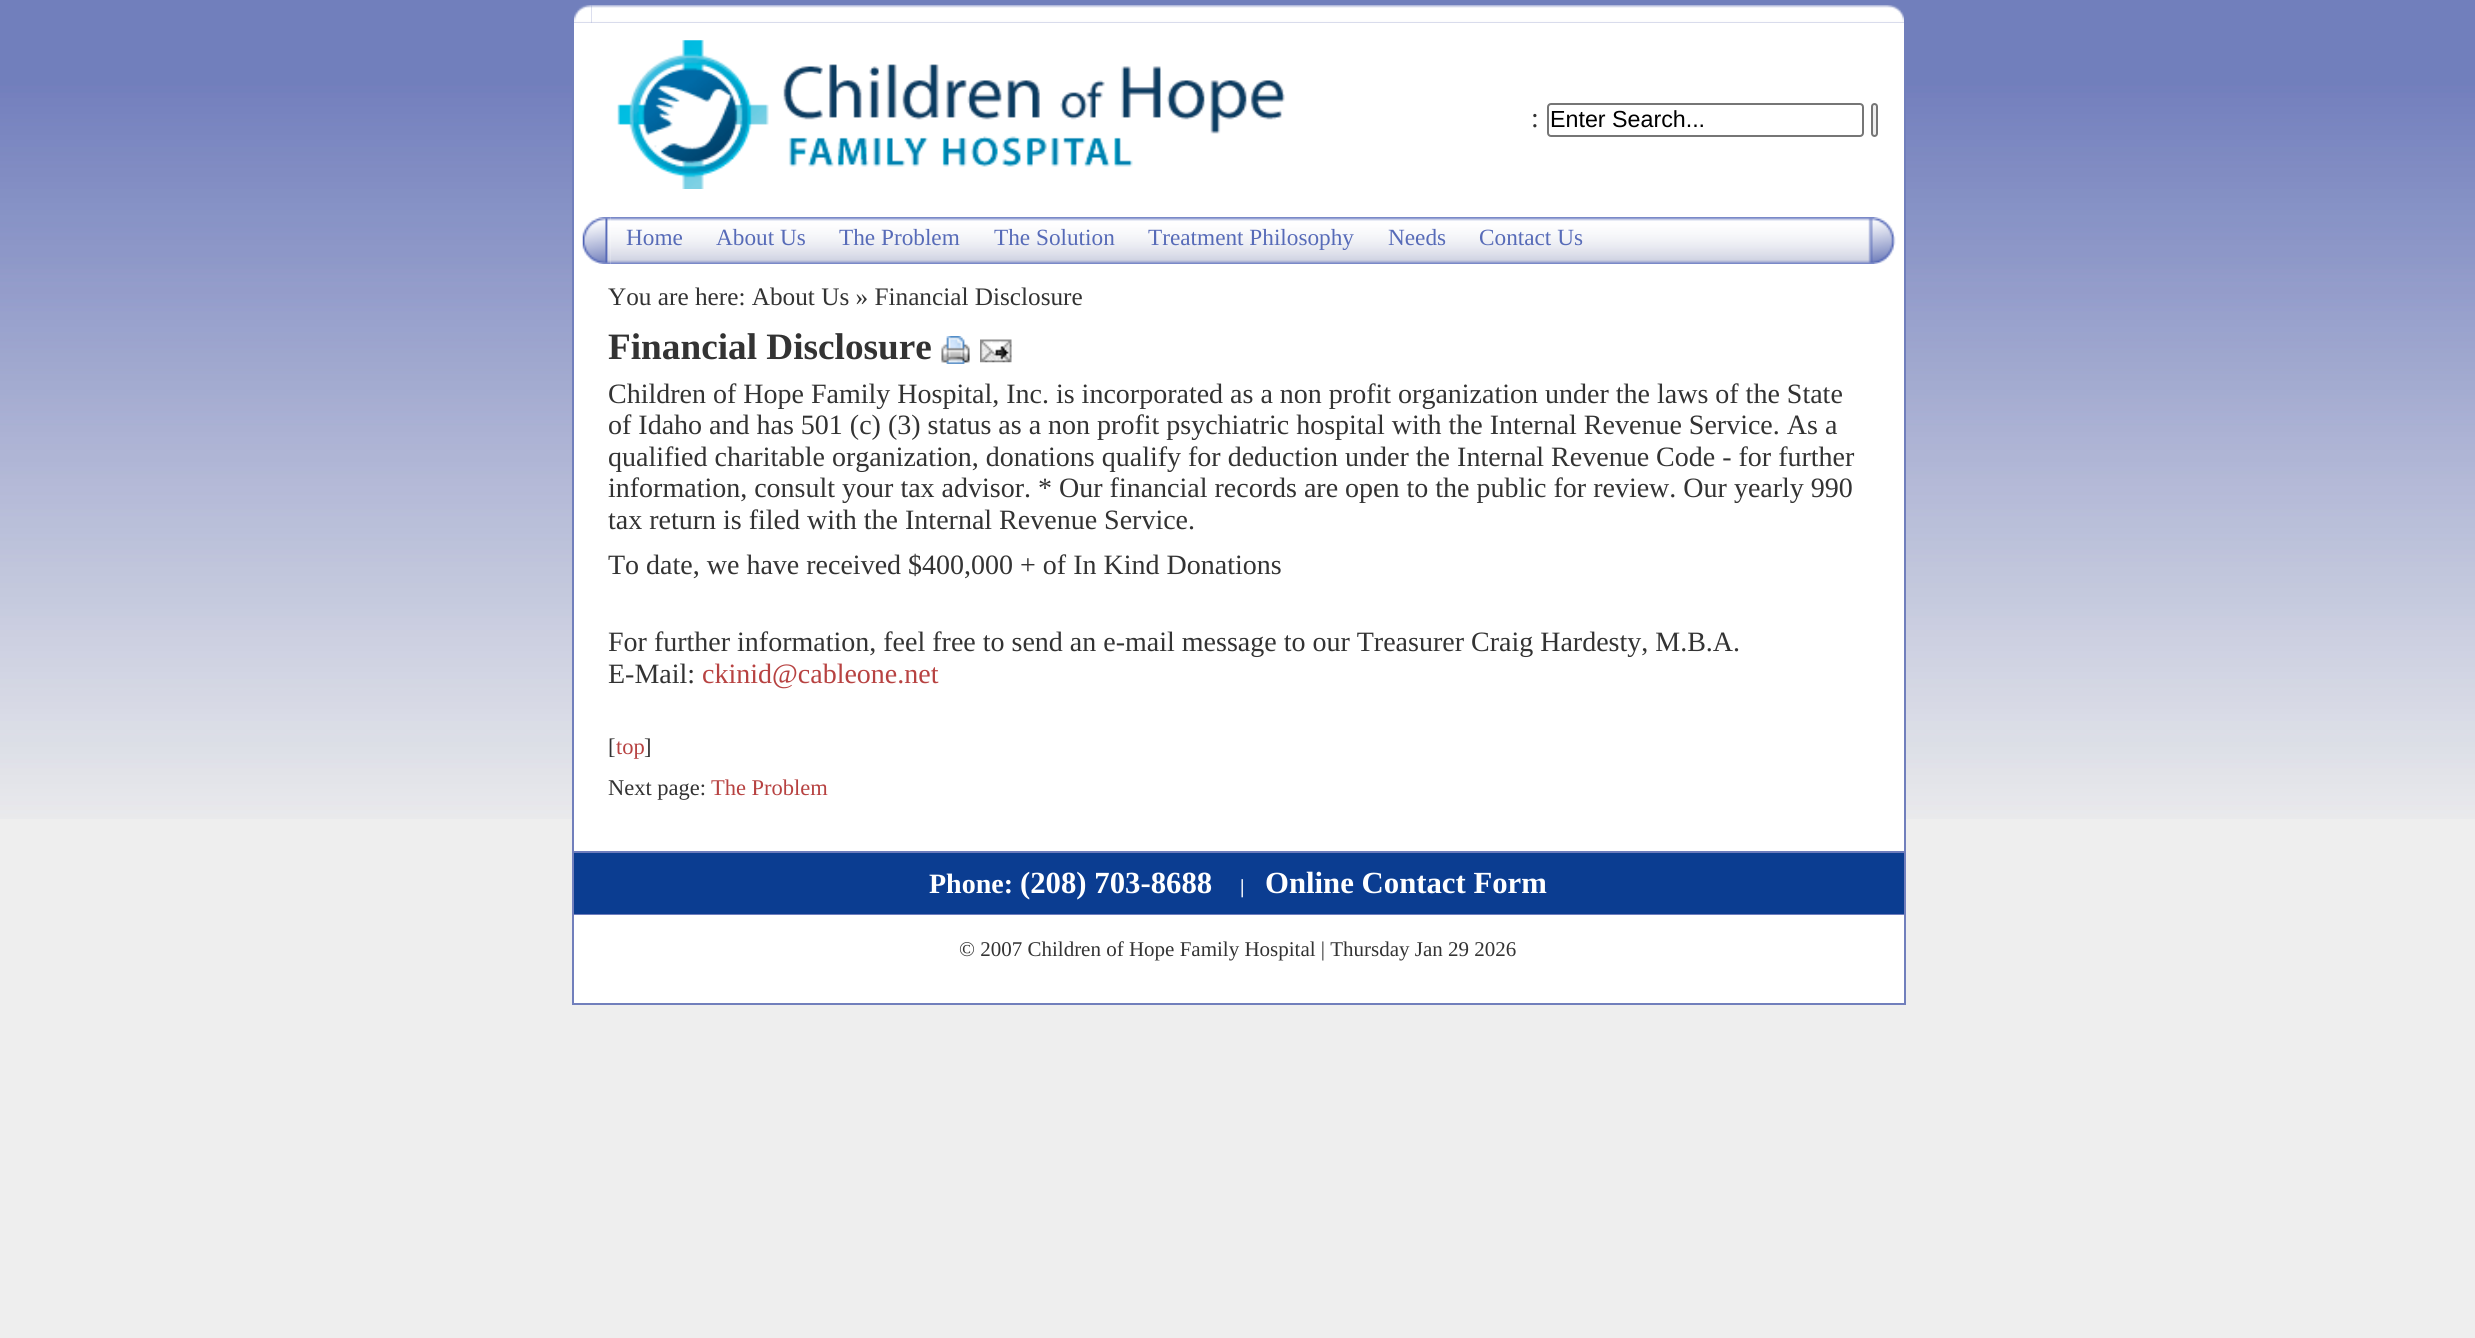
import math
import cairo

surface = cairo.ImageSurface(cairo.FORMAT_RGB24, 2475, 1338)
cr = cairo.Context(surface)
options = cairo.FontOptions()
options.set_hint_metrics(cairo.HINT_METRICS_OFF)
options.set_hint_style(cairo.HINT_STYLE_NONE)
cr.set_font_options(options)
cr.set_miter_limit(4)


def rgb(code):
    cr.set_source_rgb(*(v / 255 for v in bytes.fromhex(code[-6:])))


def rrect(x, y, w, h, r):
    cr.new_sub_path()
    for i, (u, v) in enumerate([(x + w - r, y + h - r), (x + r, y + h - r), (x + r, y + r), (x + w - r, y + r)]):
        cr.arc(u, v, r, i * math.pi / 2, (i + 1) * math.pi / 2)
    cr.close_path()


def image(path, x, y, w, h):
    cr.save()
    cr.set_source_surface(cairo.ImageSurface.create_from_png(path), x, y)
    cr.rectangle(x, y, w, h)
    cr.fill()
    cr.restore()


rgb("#eeeeee")
cr.paint()
image("img/1.png", 0, 0, 2475, 819)
cr.rectangle(573, 5, 1332, 999)
rgb("#717fbc")
cr.stroke()
image("img/2.png", 574, 5, 18, 18)
image("img/3.png", 591, 5, 1313, 18)
rgb("#ffffff")
cr.rectangle(574, 23, 1330, 828)
cr.fill()
image("img/4.png", 617, 40, 668, 149)
rrect(1548, 104, 315, 32, 3)
rgb("#767676")
cr.stroke()
rgb("#efefef")
rrect(1872, 104, 5, 32, 2.5)
cr.fill_preserve()
rgb("#767676")
cr.stroke()
image("img/5.png", 582, 217, 29, 47)
image("img/6.png", 610, 217, 1286, 47)
image("img/7.png", 941, 336, 29, 28)
image("img/8.png", 980, 339, 32, 24)
for x, y, w, h, color in [
    (574, 853, 1330, 61, "#0b3d91"),
    (574, 851, 1330, 2, "#6e7dbd"),
    (574, 914, 1330, 1, "#6e7dbd"),
    (574, 915, 1330, 70, "#ffffff"),
    (574, 985, 1330, 18, "#ffffff"),
]:
    rgb(color)
    cr.rectangle(x, y, w, h)
    cr.fill()
cr.select_font_face("Liberation Serif")
cr.set_font_size(28)
rgb("#333333")
cr.move_to(1531, 127)
cr.show_text(":")
cr.select_font_face("Liberation Sans")
cr.set_font_size(23.25)
rgb("#000000")
cr.move_to(1550, 127)
cr.show_text("Enter Search...")
cr.select_font_face("Liberation Serif")
rgb("#576bb8")
for x, y, s in [
    (626, 245, "Home"),
    (716, 245, "About Us"),
    (839, 245, "The Problem"),
    (994, 245, "The Solution"),
    (1148, 245, "Treatment Philosophy"),
    (1388, 245, "Needs"),
    (1479, 245, "Contact Us"),
]:
    cr.move_to(x, y)
    cr.show_text(s)
cr.set_font_size(25.25)
rgb("#333333")
cr.move_to(608, 305)
cr.show_text("You are here: About Us » Financial Disclosure")
cr.select_font_face("Liberation Serif", cairo.FONT_SLANT_NORMAL, cairo.FONT_WEIGHT_BOLD)
cr.set_font_size(37.25)
cr.move_to(608, 359)
cr.show_text("Financial Disclosure")
cr.select_font_face("Liberation Serif")
cr.set_font_size(28)
for x, y, s in [
    (608, 403, "Children of Hope Family Hospital, Inc. is incorporated as a non profit organization under the laws of the State"),
    (608, 434, "of Idaho and has 501 (c) (3) status as a non profit psychiatric hospital with the Internal Revenue Service. As a"),
    (608, 466, "qualified charitable organization, donations qualify for deduction under the Internal Revenue Code - for further"),
    (608, 497, "information, consult your tax advisor. * Our financial records are open to the public for review. Our yearly 990"),
    (608, 529, "tax return is filed with the Internal Revenue Service."),
    (608, 574, "To date, we have received $400,000 + of In Kind Donations"),
    (608, 651, "For further information, feel free to send an e-mail message to our Treasurer Craig Hardesty, M.B.A."),
    (608, 683, "E-Mail:"),
]:
    cr.move_to(x, y)
    cr.show_text(s)
rgb("#b74241")
cr.move_to(702, 683)
cr.show_text("ckinid@cableone.net")
cr.set_font_size(22.5)
rgb("#333333")
cr.move_to(608, 754)
cr.show_text("[")
rgb("#b74241")
cr.move_to(616, 754)
cr.show_text("top")
rgb("#333333")
cr.move_to(644, 754)
cr.show_text("]")
cr.move_to(608, 795)
cr.show_text("Next page:")
rgb("#b74241")
cr.move_to(711, 795)
cr.show_text("The Problem")
cr.select_font_face("Liberation Serif", cairo.FONT_SLANT_NORMAL, cairo.FONT_WEIGHT_BOLD)
cr.set_font_size(28)
rgb("#ffffff")
cr.move_to(929, 893)
cr.show_text("Phone:")
cr.set_font_size(30.75)
cr.move_to(1020, 893)
cr.show_text("(208) 703-8688")
cr.set_font_size(20)
cr.move_to(1240, 893)
cr.show_text("|")
cr.set_font_size(30.75)
cr.move_to(1265, 893)
cr.show_text("Online Contact Form")
cr.select_font_face("Liberation Serif")
cr.set_font_size(21)
rgb("#333333")
cr.move_to(959, 956)
cr.show_text("© 2007 Children of Hope Family Hospital | Thursday Jan 29 2026")
surface.write_to_png("page.png")
